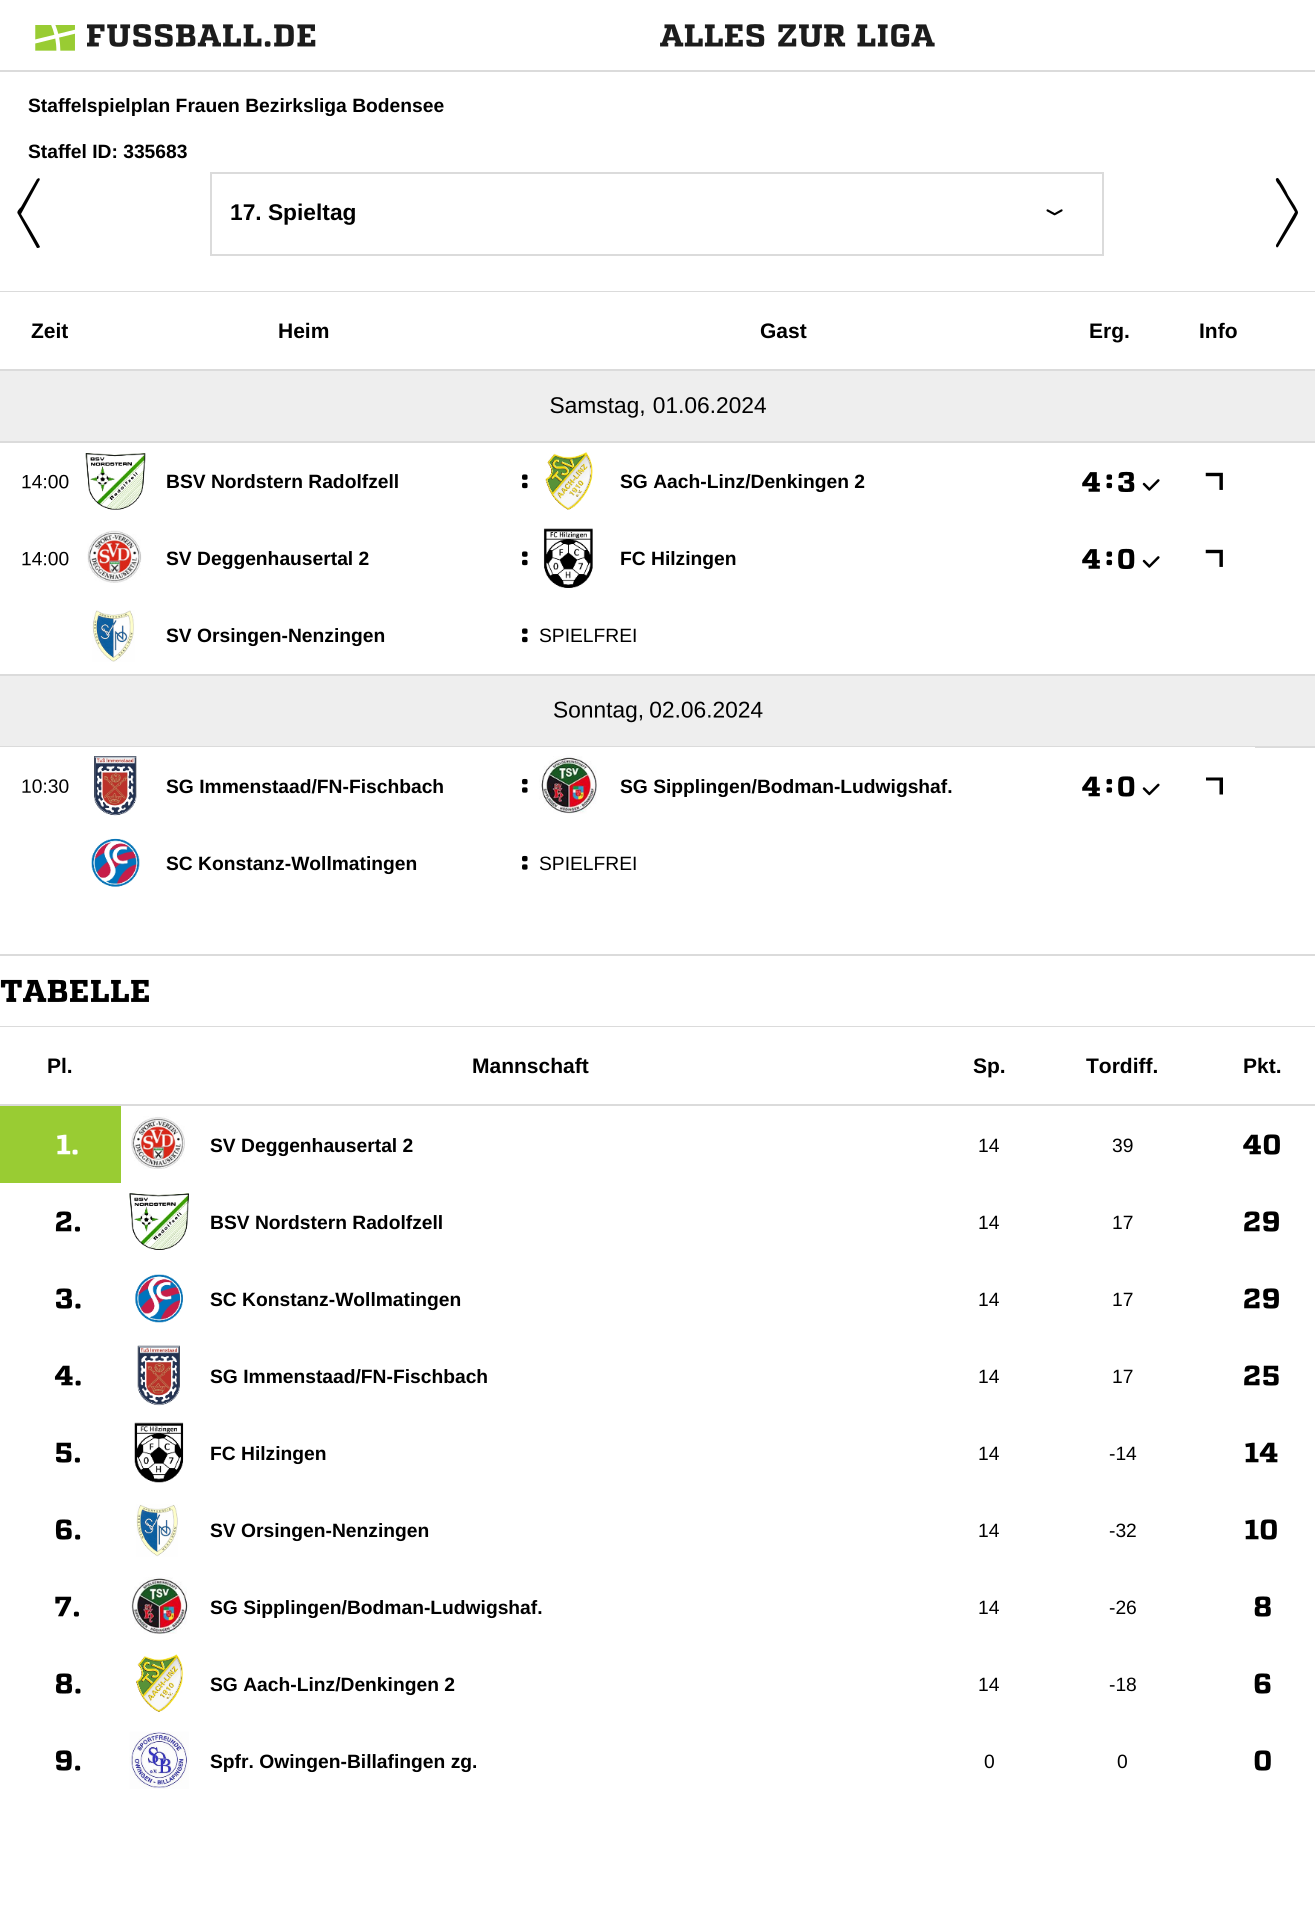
import math
import cairo

surface = cairo.ImageSurface(cairo.FORMAT_RGB24, 1315, 1915)
cr = cairo.Context(surface)
options = cairo.FontOptions()
options.set_hint_metrics(cairo.HINT_METRICS_OFF)
options.set_hint_style(cairo.HINT_STYLE_NONE)
cr.set_font_options(options)
cr.set_miter_limit(4)


def rgb(code):
    cr.set_source_rgb(*(v / 255 for v in bytes.fromhex(code[-6:])))


def image(path, x, y, w, h):
    cr.save()
    cr.set_source_surface(cairo.ImageSurface.create_from_png(path), x, y)
    cr.rectangle(x, y, w, h)
    cr.fill()
    cr.restore()


rgb("#ffffff")
cr.paint()
rgb("#dbdbdb")
cr.rectangle(0, 70, 1315, 2)
cr.fill()
image("img/1.png", 35, 25, 40, 26)
image("img/2.png", 87, 24, 229, 23)
image("img/3.png", 660, 24, 275, 23)
cr.rectangle(0, 291, 1315, 1)
cr.fill()
rgb("#000000")
cr.new_path()
cr.move_to(39, 181)
cr.line_to(21, 214)
cr.curve_to(23, 217, 40, 246, 40, 247)
cr.curve_to(39, 248, 38, 248, 37, 248)
cr.line_to(18, 214)
cr.curve_to(16, 212, 19, 209, 21, 207)
cr.line_to(37, 179)
cr.line_to(39, 178)
cr.curve_to(40, 179, 40, 180, 39, 181)
cr.close_path()
cr.fill()
cr.rectangle(211, 173, 892, 82)
rgb("#dbdbdb")
cr.stroke()
image("img/4.png", 1046, 209, 17, 7)
rgb("#000000")
cr.new_path()
cr.move_to(1276, 245)
cr.line_to(1295, 212)
cr.line_to(1279, 185)
cr.curve_to(1278, 184, 1273, 178, 1278, 178)
cr.curve_to(1280, 180, 1287, 192, 1288, 195)
cr.line_to(1295, 206)
cr.curve_to(1299, 214, 1299, 211, 1295, 219)
cr.line_to(1278, 247)
cr.curve_to(1277, 248, 1276, 247, 1276, 246)
cr.close_path()
cr.fill()
for x, y, w, h, color in [
    (0, 369, 1315, 2, "#dbdbdb"),
    (0, 371, 1315, 70, "#eeeeee"),
    (0, 441, 1315, 2, "#dbdbdb"),
]:
    rgb(color)
    cr.rectangle(x, y, w, h)
    cr.fill()
image("img/5.png", 550, 397, 94, 21)
image("img/6.png", 653, 397, 113, 17)
image("img/7.png", 22, 474, 47, 15)
image("img/8.png", 85, 453, 61, 57)
image("img/9.png", 522, 474, 6, 15)
image("img/10.png", 545, 452, 48, 58)
image("img/11.png", 1082, 472, 18, 20)
image("img/12.png", 1106, 474, 7, 15)
image("img/13.png", 1118, 471, 17, 21)
image("img/14.png", 1142, 479, 18, 12)
image("img/15.png", 1205, 472, 18, 18)
image("img/7.png", 22, 551, 47, 15)
image("img/16.png", 87, 530, 55, 53)
image("img/9.png", 522, 551, 6, 15)
image("img/17.png", 543, 528, 50, 60)
image("img/11.png", 1082, 549, 18, 20)
image("img/12.png", 1106, 551, 7, 15)
image("img/18.png", 1118, 548, 17, 21)
image("img/14.png", 1142, 556, 18, 12)
image("img/15.png", 1205, 549, 18, 18)
image("img/19.png", 92, 610, 43, 52)
image("img/9.png", 522, 628, 6, 15)
for x, y, w, h, color in [
    (0, 676, 1315, 70, "#eeeeee"),
    (0, 674, 1315, 2, "#dbdbdb"),
    (0, 746, 1315, 2, "#dbdbdb"),
]:
    rgb(color)
    cr.rectangle(x, y, w, h)
    cr.fill()
image("img/20.png", 554, 701, 89, 22)
image("img/21.png", 650, 701, 113, 17)
rgb("#ffffff")
cr.rectangle(0, 747, 1255, 1)
cr.fill()
image("img/22.png", 22, 779, 47, 14)
image("img/23.png", 94, 756, 43, 60)
image("img/24.png", 522, 778, 6, 15)
image("img/25.png", 539, 756, 58, 58)
image("img/26.png", 1082, 776, 18, 21)
image("img/27.png", 1106, 778, 7, 15)
image("img/28.png", 1118, 776, 17, 21)
image("img/29.png", 1142, 783, 18, 13)
rgb("#000000")
cr.new_path()
cr.move_to(1219.5, 794.5)
cr.line_to(1219.5, 780.5)
cr.line_to(1206, 780.5)
cr.line_to(1206, 777.5)
cr.line_to(1223, 777.5)
cr.line_to(1223, 794.5)
cr.close_path()
cr.fill()
image("img/30.png", 91, 838, 49, 49)
image("img/24.png", 522, 855, 6, 15)
rgb("#dbdbdb")
cr.rectangle(0, 954, 1315, 2)
cr.fill()
cr.rectangle(0, 1026, 1315, 1)
cr.fill()
image("img/31.png", 0, 979, 149, 23)
cr.rectangle(0, 1104, 1315, 2)
cr.fill()
rgb("#99cc33")
cr.rectangle(0, 1106, 121, 77)
cr.fill()
image("img/32.png", 57, 1134, 21, 21)
image("img/33.png", 131, 1116, 54, 53)
image("img/34.png", 1243, 1134, 37, 21)
image("img/35.png", 55, 1211, 25, 21)
image("img/36.png", 129, 1193, 60, 57)
image("img/37.png", 1244, 1211, 35, 21)
image("img/38.png", 55, 1288, 26, 21)
image("img/39.png", 134, 1274, 49, 49)
image("img/37.png", 1244, 1288, 35, 21)
image("img/40.png", 54, 1365, 27, 21)
image("img/41.png", 137, 1345, 43, 61)
image("img/42.png", 1244, 1365, 35, 21)
image("img/43.png", 55, 1442, 25, 21)
image("img/44.png", 134, 1422, 50, 61)
image("img/45.png", 1245, 1442, 33, 21)
image("img/46.png", 55, 1519, 26, 21)
image("img/47.png", 136, 1504, 42, 53)
image("img/48.png", 1245, 1519, 32, 21)
image("img/49.png", 55, 1596, 24, 21)
image("img/50.png", 130, 1577, 59, 57)
image("img/51.png", 1254, 1596, 17, 21)
image("img/52.png", 55, 1673, 26, 21)
image("img/53.png", 136, 1654, 48, 58)
image("img/54.png", 1254, 1673, 17, 21)
image("img/55.png", 55, 1750, 26, 21)
image("img/56.png", 129, 1731, 60, 58)
image("img/57.png", 1254, 1750, 17, 21)
cr.select_font_face("Liberation Sans", cairo.FONT_SLANT_NORMAL, cairo.FONT_WEIGHT_BOLD)
cr.set_font_size(19.25)
rgb("#000000")
cr.move_to(28, 112)
cr.show_text("Staffelspielplan Frauen Bezirksliga Bodensee")
cr.move_to(28, 158)
cr.show_text("Staffel ID: 335683")
cr.set_font_size(22.75)
cr.move_to(230, 220)
cr.show_text("17. Spieltag")
cr.set_font_size(21)
for x, y, s in [
    (31, 338, "Zeit"),
    (278, 338, "Heim"),
    (760, 338, "Gast"),
    (1089, 338, "Erg."),
    (1199, 338, "Info"),
]:
    cr.move_to(x, y)
    cr.show_text(s)
cr.set_font_size(19.25)
for x, y, s in [
    (166, 488, "BSV Nordstern Radolfzell"),
    (620, 488, "SG Aach-Linz/Denkingen 2"),
    (166, 565, "SV Deggenhausertal 2"),
    (620, 565, "FC Hilzingen"),
    (166, 642, "SV Orsingen-Nenzingen"),
]:
    cr.move_to(x, y)
    cr.show_text(s)
cr.select_font_face("Liberation Sans")
cr.move_to(539, 642)
cr.show_text("SPIELFREI")
cr.select_font_face("Liberation Sans", cairo.FONT_SLANT_NORMAL, cairo.FONT_WEIGHT_BOLD)
for x, y, s in [
    (166, 793, "SG Immenstaad/FN-Fischbach"),
    (620, 793, "SG Sipplingen/Bodman-Ludwigshaf."),
    (166, 870, "SC Konstanz-Wollmatingen"),
]:
    cr.move_to(x, y)
    cr.show_text(s)
cr.select_font_face("Liberation Sans")
cr.move_to(539, 870)
cr.show_text("SPIELFREI")
cr.select_font_face("Liberation Sans", cairo.FONT_SLANT_NORMAL, cairo.FONT_WEIGHT_BOLD)
cr.set_font_size(21)
for x, y, s in [
    (47, 1073, "Pl."),
    (472, 1073, "Mannschaft"),
    (973, 1073, "Sp."),
    (1086, 1073, "Tordiff."),
    (1243, 1073, "Pkt."),
]:
    cr.move_to(x, y)
    cr.show_text(s)
cr.set_font_size(19.25)
cr.move_to(210, 1152)
cr.show_text("SV Deggenhausertal 2")
cr.select_font_face("Liberation Sans")
cr.move_to(978, 1152)
cr.show_text("14")
cr.move_to(1112, 1152)
cr.show_text("39")
cr.select_font_face("Liberation Sans", cairo.FONT_SLANT_NORMAL, cairo.FONT_WEIGHT_BOLD)
cr.move_to(210, 1229)
cr.show_text("BSV Nordstern Radolfzell")
cr.select_font_face("Liberation Sans")
cr.move_to(978, 1229)
cr.show_text("14")
cr.move_to(1112, 1229)
cr.show_text("17")
cr.select_font_face("Liberation Sans", cairo.FONT_SLANT_NORMAL, cairo.FONT_WEIGHT_BOLD)
cr.move_to(210, 1306)
cr.show_text("SC Konstanz-Wollmatingen")
cr.select_font_face("Liberation Sans")
cr.move_to(978, 1306)
cr.show_text("14")
cr.move_to(1112, 1306)
cr.show_text("17")
cr.select_font_face("Liberation Sans", cairo.FONT_SLANT_NORMAL, cairo.FONT_WEIGHT_BOLD)
cr.move_to(210, 1383)
cr.show_text("SG Immenstaad/FN-Fischbach")
cr.select_font_face("Liberation Sans")
cr.move_to(978, 1383)
cr.show_text("14")
cr.move_to(1112, 1383)
cr.show_text("17")
cr.select_font_face("Liberation Sans", cairo.FONT_SLANT_NORMAL, cairo.FONT_WEIGHT_BOLD)
cr.move_to(210, 1460)
cr.show_text("FC Hilzingen")
cr.select_font_face("Liberation Sans")
cr.move_to(978, 1460)
cr.show_text("14")
cr.move_to(1109, 1460)
cr.show_text("-14")
cr.select_font_face("Liberation Sans", cairo.FONT_SLANT_NORMAL, cairo.FONT_WEIGHT_BOLD)
cr.move_to(210, 1537)
cr.show_text("SV Orsingen-Nenzingen")
cr.select_font_face("Liberation Sans")
cr.move_to(978, 1537)
cr.show_text("14")
cr.move_to(1109, 1537)
cr.show_text("-32")
cr.select_font_face("Liberation Sans", cairo.FONT_SLANT_NORMAL, cairo.FONT_WEIGHT_BOLD)
cr.move_to(210, 1614)
cr.show_text("SG Sipplingen/Bodman-Ludwigshaf.")
cr.select_font_face("Liberation Sans")
cr.move_to(978, 1614)
cr.show_text("14")
cr.move_to(1109, 1614)
cr.show_text("-26")
cr.select_font_face("Liberation Sans", cairo.FONT_SLANT_NORMAL, cairo.FONT_WEIGHT_BOLD)
cr.move_to(210, 1691)
cr.show_text("SG Aach-Linz/Denkingen 2")
cr.select_font_face("Liberation Sans")
cr.move_to(978, 1691)
cr.show_text("14")
cr.move_to(1109, 1691)
cr.show_text("-18")
cr.select_font_face("Liberation Sans", cairo.FONT_SLANT_NORMAL, cairo.FONT_WEIGHT_BOLD)
cr.move_to(210, 1768)
cr.show_text("Spfr. Owingen-Billafingen zg.")
cr.select_font_face("Liberation Sans")
cr.move_to(984, 1768)
cr.show_text("0")
cr.move_to(1117, 1768)
cr.show_text("0")
surface.write_to_png("page.png")
